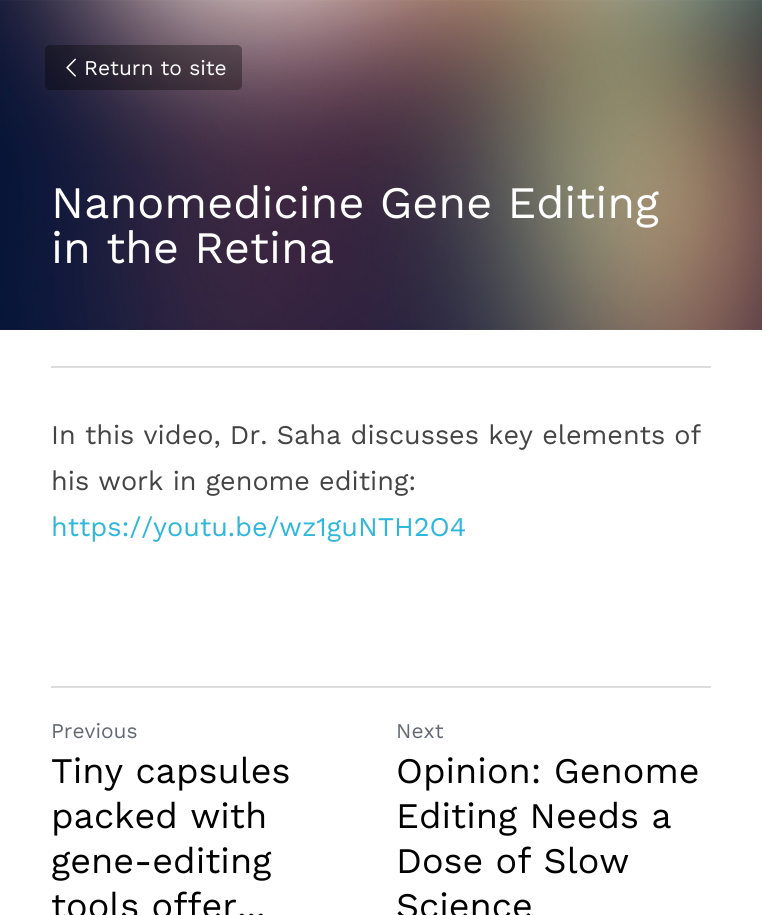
import math
import cairo

surface = cairo.ImageSurface(cairo.FORMAT_RGB24, 762, 915)
cr = cairo.Context(surface)
options = cairo.FontOptions()
options.set_hint_metrics(cairo.HINT_METRICS_OFF)
options.set_hint_style(cairo.HINT_STYLE_NONE)
cr.set_font_options(options)
cr.set_miter_limit(4)


def rgb(code):
    cr.set_source_rgb(*(v / 255 for v in bytes.fromhex(code[-6:])))


def rrect(x, y, w, h, r):
    cr.new_sub_path()
    for i, (u, v) in enumerate([(x + w - r, y + h - r), (x + r, y + h - r), (x + r, y + r), (x + w - r, y + r)]):
        cr.arc(u, v, r, i * math.pi / 2, (i + 1) * math.pi / 2)
    cr.close_path()


def image(path, x, y, w, h):
    cr.save()
    cr.set_source_surface(cairo.ImageSurface.create_from_png(path), x, y)
    cr.rectangle(x, y, w, h)
    cr.fill()
    cr.restore()


rgb("#ffffff")
cr.paint()
image("img/1.png", 0, 0, 762, 330)
cr.set_source_rgba(0, 0, 0, 0.35)
rrect(45, 45, 197, 45, 5)
cr.fill()
image("img/2.png", 66, 58, 10, 19)
rgb("#dddddd")
cr.rectangle(51, 366, 660, 2)
cr.fill()
cr.rectangle(51, 686, 660, 2)
cr.fill()
cr.select_font_face("Work Sans")
cr.set_font_size(21)
rgb("#ffffff")
cr.move_to(84, 75)
cr.show_text("Return to site")
cr.set_font_size(45)
cr.move_to(51, 218)
cr.show_text("Nanomedicine Gene Editing")
cr.move_to(51, 263)
cr.show_text("in the Retina")
cr.set_font_size(27)
rgb("#444444")
cr.move_to(51, 444)
cr.show_text("In this video, Dr. Saha discusses key elements of")
cr.move_to(51, 490)
cr.show_text("his work in genome editing:")
rgb("#2eb6dc")
cr.move_to(51, 536)
cr.show_text("https://youtu.be/wz1guNTH2O4")
cr.set_font_size(21)
rgb("#636972")
cr.move_to(51, 738)
cr.show_text("Previous")
cr.set_font_size(36)
rgb("#000000")
for x, y, s in [
    (51, 783, "Tiny capsules"),
    (51, 828, "packed with"),
    (51, 873, "gene-editing"),
    (51, 918, "tools offer..."),
]:
    cr.move_to(x, y)
    cr.show_text(s)
cr.set_font_size(21)
rgb("#636972")
cr.move_to(396, 738)
cr.show_text("Next")
cr.set_font_size(36)
rgb("#000000")
for x, y, s in [
    (396, 783, "Opinion: Genome"),
    (396, 828, "Editing Needs a"),
    (396, 873, "Dose of Slow"),
    (396, 918, "Science"),
]:
    cr.move_to(x, y)
    cr.show_text(s)
surface.write_to_png("page.png")
